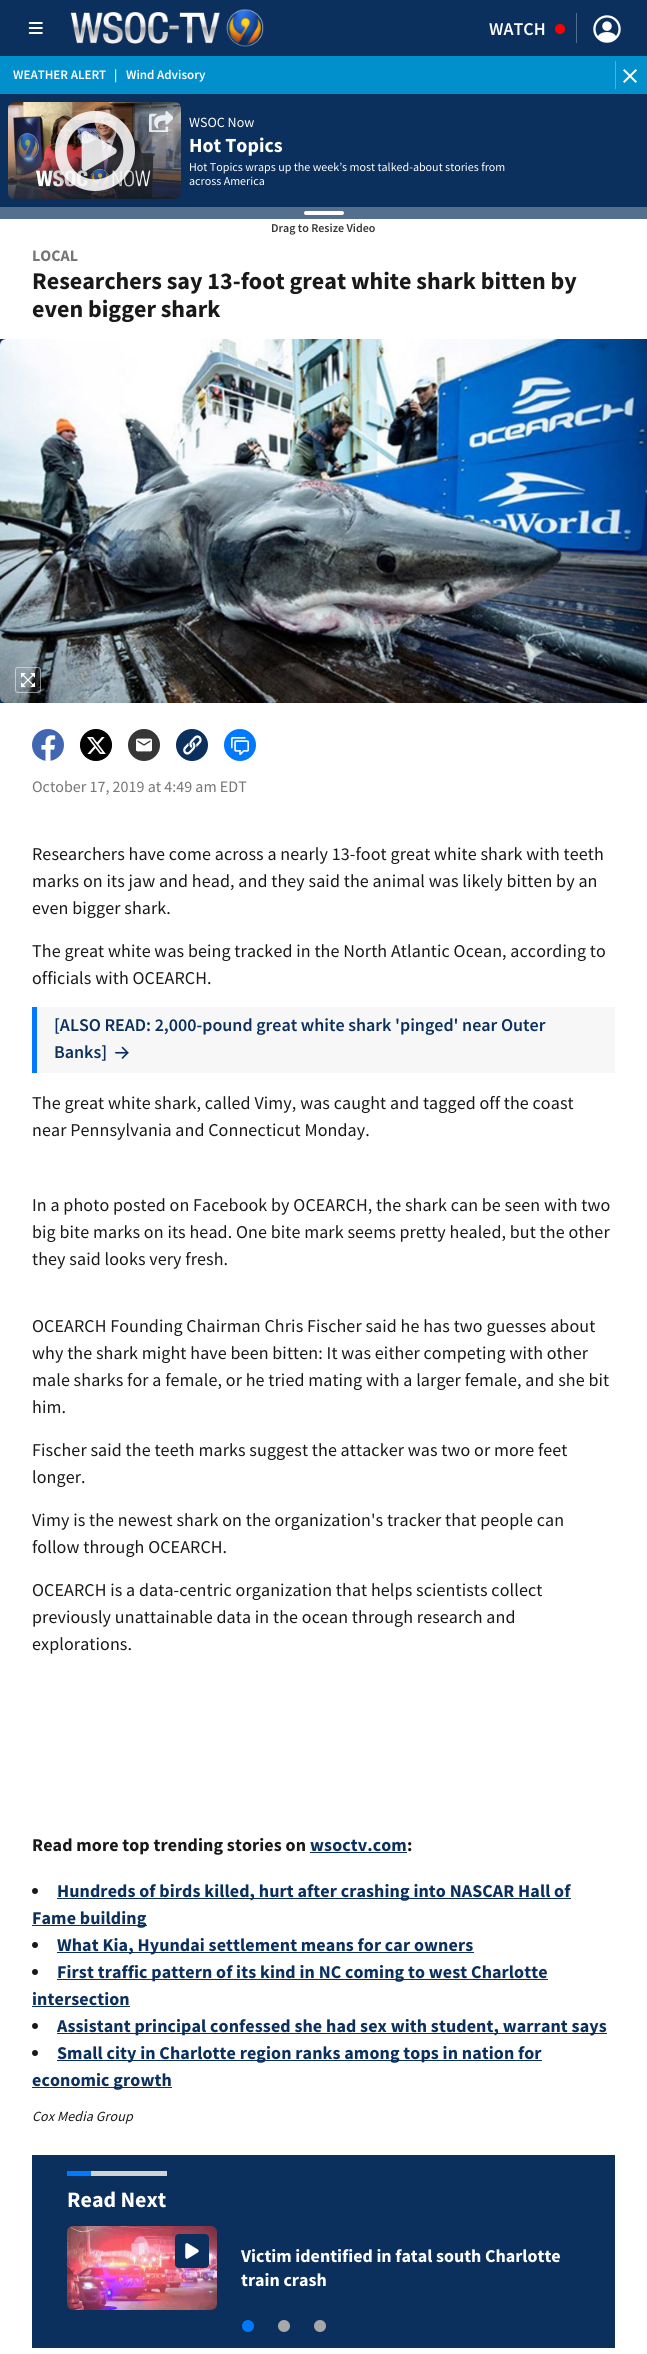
import math
import cairo

surface = cairo.ImageSurface(cairo.FORMAT_RGB24, 647, 2354)
cr = cairo.Context(surface)
options = cairo.FontOptions()
options.set_hint_metrics(cairo.HINT_METRICS_OFF)
options.set_hint_style(cairo.HINT_STYLE_NONE)
cr.set_font_options(options)
cr.set_miter_limit(4)


def rgb(code):
    cr.set_source_rgb(*(v / 255 for v in bytes.fromhex(code[-6:])))


def tracked(x, y, s, letter, word):
    cr.move_to(x, y)
    for ch in s:
        cr.show_text(ch)
        cr.rel_move_to(letter + word * (ch == ' '), 0)


def rrect(x, y, w, h, r):
    cr.new_sub_path()
    for i, (u, v) in enumerate([(x + w - r, y + h - r), (x + r, y + h - r), (x + r, y + r), (x + w - r, y + r)]):
        cr.arc(u, v, r, i * math.pi / 2, (i + 1) * math.pi / 2)
    cr.close_path()


def soft_shadow(x, y, w, h, r, blur, alpha):
    cr.push_group_with_content(cairo.CONTENT_ALPHA)
    cr.set_operator(cairo.OPERATOR_SOURCE)
    for i in range(15, -16, -2):
        e = blur * i / 6
        if min(w, h) + 2 * e > 0:
            cr.set_source_rgba(0, 0, 0, alpha * math.erfc((i - 1) / 8.5) / 2)
            rrect(x - e, y - e, w + 2 * e, h + 2 * e, max(0, min(r + e + blur * .6, min(w, h) / 2 + e)))
            cr.fill()
    cr.mask(cr.pop_group())


def image(path, x, y, w, h):
    cr.save()
    cr.set_source_surface(cairo.ImageSurface.create_from_png(path), x, y)
    cr.rectangle(x, y, w, h)
    cr.fill()
    cr.restore()


rgb("#ffffff")
cr.paint()
rgb("#0b305d")
cr.rectangle(0, 0, 647, 56)
cr.fill()
image("img/1.png", 28, 22, 15, 12)
image("img/2.png", 70, 9, 194, 38)
rgb("#ff0000")
cr.arc(560, 29, 5, 0, 2 * math.pi)
cr.fill()
rgb("#546e8e")
cr.rectangle(576, 13, 1, 30)
cr.fill()
image("img/3.png", 593, 15, 28, 28)
rgb("#0290cd")
cr.rectangle(0, 56, 647, 38)
cr.fill()
rgb("#4eb1dc")
cr.rectangle(615, 61, 1, 28)
cr.fill()
image("img/4.png", 623, 69, 14, 14)
rgb("#0b305d")
cr.rectangle(0, 94, 647, 113)
cr.fill()
image("img/5.png", 8, 102, 173, 97)
cr.save()
rrect(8, 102, 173, 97, 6)
cr.clip()
cr.set_fill_rule(cairo.FILL_RULE_EVEN_ODD)
cr.new_path()
cr.move_to(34, 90)
cr.line_to(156, 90)
cr.line_to(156, 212)
cr.line_to(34, 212)
cr.close_path()
cr.move_to(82, 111)
cr.line_to(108, 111)
cr.curve_to(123, 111, 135, 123, 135, 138)
cr.line_to(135, 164)
cr.curve_to(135, 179, 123, 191, 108, 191)
cr.line_to(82, 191)
cr.curve_to(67, 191, 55, 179, 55, 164)
cr.line_to(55, 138)
cr.curve_to(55, 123, 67, 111, 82, 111)
cr.close_path()
cr.clip()
rgb("#000000")
soft_shadow(50, 106, 90, 90, 32, 5, 0.21)
cr.restore()
cr.set_source_rgba(0, 0, 0, 0.21)
rrect(55, 111, 80, 80, 27)
cr.fill()
image("img/6.png", 55, 111, 80, 80)
cr.save()
cr.set_fill_rule(cairo.FILL_RULE_EVEN_ODD)
cr.new_path()
cr.move_to(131, 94)
cr.line_to(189, 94)
cr.line_to(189, 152)
cr.line_to(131, 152)
cr.close_path()
cr.move_to(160, 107)
cr.curve_to(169, 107, 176, 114, 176, 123)
cr.curve_to(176, 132, 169, 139, 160, 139)
cr.curve_to(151, 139, 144, 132, 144, 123)
cr.curve_to(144, 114, 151, 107, 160, 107)
cr.close_path()
cr.clip()
rgb("#000000")
soft_shadow(141, 104, 38, 38, 19, 3, 0.1)
cr.restore()
cr.set_source_rgba(0, 0, 0, 0.1)
cr.arc(160, 123, 16, 0, 2 * math.pi)
cr.fill()
image("img/7.png", 149, 111, 24, 21)
rgb("#546e8e")
cr.rectangle(0, 207, 647, 12)
cr.fill()
rgb("#ffffff")
rrect(304, 211, 40, 4, 2)
cr.fill()
rgb("#0b305d")
cr.rectangle(0, 339, 647, 364)
cr.fill()
image("img/8.png", 0, 339, 647, 364)
rrect(15.5, 667.5, 25, 25, 2.5)
cr.set_source_rgba(1, 1, 1, 0.5)
cr.set_line_width(1)
cr.stroke()
image("img/9.png", 21, 673, 14, 14)
image("img/10.png", 32, 729, 32, 32)
image("img/11.png", 80, 729, 32, 32)
image("img/12.png", 128, 729, 32, 32)
image("img/13.png", 176, 729, 32, 32)
rgb("#0079ff")
cr.arc(240, 745, 16, 0, 2 * math.pi)
cr.fill()
image("img/14.png", 231, 737, 18, 18)
rgb("#f7f7f7")
cr.rectangle(37, 1007, 578, 66)
cr.fill()
rgb("#0079ff")
cr.rectangle(32, 1007, 5, 66)
cr.fill()
image("img/15.png", 115, 1046, 14, 13)
rgb("#0b305d")
cr.rectangle(310, 1852, 97, 1)
cr.fill()
rgb("#191919")
cr.arc(35, 1891, 3, 0, 2 * math.pi)
cr.fill()
rgb("#0b305d")
cr.rectangle(57, 1898, 514, 1)
cr.fill()
cr.rectangle(32, 1925, 115, 1)
cr.fill()
rgb("#191919")
cr.arc(35, 1945, 3, 0, 2 * math.pi)
cr.fill()
rgb("#0b305d")
cr.rectangle(57, 1952, 417, 1)
cr.fill()
rgb("#191919")
cr.arc(35, 1972, 3, 0, 2 * math.pi)
cr.fill()
rgb("#0b305d")
cr.rectangle(57, 1979, 491, 1)
cr.fill()
cr.rectangle(32, 2006, 98, 1)
cr.fill()
rgb("#191919")
cr.arc(35, 2026, 3, 0, 2 * math.pi)
cr.fill()
rgb("#0b305d")
cr.rectangle(57, 2033, 550, 1)
cr.fill()
rgb("#191919")
cr.arc(35, 2053, 3, 0, 2 * math.pi)
cr.fill()
for x, y, w, h, color in [
    (57, 2060, 485, 1, "#0b305d"),
    (32, 2087, 140, 1, "#0b305d"),
    (32, 2155, 583, 193, "#0b305d"),
    (91, 2171, 76, 5, "#d3d3d3"),
    (67, 2171, 24, 5, "#0079ff"),
]:
    rgb(color)
    cr.rectangle(x, y, w, h)
    cr.fill()
image("img/16.png", 67, 2226, 150, 84)
rgb("#0b305d")
rrect(175, 2234, 34, 34, 4)
cr.fill()
image("img/17.png", 185, 2243, 14, 16)
rgb("#0079ff")
cr.arc(248, 2326, 6, 0, 2 * math.pi)
cr.fill()
rgb("#a8a8a8")
cr.arc(284, 2326, 6, 0, 2 * math.pi)
cr.fill()
cr.arc(320, 2326, 6, 0, 2 * math.pi)
cr.fill()
cr.select_font_face("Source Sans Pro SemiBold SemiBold")
cr.set_font_size(18)
rgb("#ffffff")
cr.move_to(489, 35)
cr.show_text("WATCH")
cr.set_font_size(13)
for x, y, s in [
    (13, 79, "WEATHER ALERT"),
    (114, 79, "|"),
    (126, 79, "Wind Advisory"),
]:
    cr.move_to(x, y)
    cr.show_text(s)
cr.select_font_face("Source Sans Pro")
cr.set_font_size(14)
cr.move_to(189, 127)
cr.show_text("WSOC Now")
cr.select_font_face("Source Sans Pro", cairo.FONT_SLANT_NORMAL, cairo.FONT_WEIGHT_BOLD)
cr.set_font_size(20)
cr.move_to(189, 152)
cr.show_text("Hot Topics")
cr.select_font_face("Source Sans Pro")
cr.set_font_size(12)
cr.move_to(189, 171)
cr.show_text("Hot Topics wraps up the week’s most talked-about stories from")
cr.move_to(189, 185)
cr.show_text("across America")
cr.select_font_face("Source Sans Pro SemiBold SemiBold")
rgb("#363636")
cr.move_to(271, 232)
cr.show_text("Drag to Resize Video")
cr.select_font_face("Source Sans Pro", cairo.FONT_SLANT_NORMAL, cairo.FONT_WEIGHT_BOLD)
cr.set_font_size(16)
rgb("#757575")
cr.move_to(32, 261)
cr.show_text("LOCAL")
cr.set_font_size(24)
rgb("#191919")
cr.move_to(32, 289)
cr.show_text("Researchers say 13-foot great white shark bitten by")
cr.move_to(32, 317)
cr.show_text("even bigger shark")
cr.select_font_face("Source Sans Pro")
cr.set_font_size(16)
rgb("#757575")
cr.move_to(32, 792)
cr.show_text("October 17, 2019 at 4:49 am EDT")
cr.set_font_size(18)
rgb("#191919")
for x, y, s in [
    (32, 860, "Researchers have come across a nearly 13-foot great white shark with teeth"),
    (32, 887, "marks on its jaw and head, and they said the animal was likely bitten by an"),
    (32, 914, "even bigger shark."),
    (32, 957, "The great white was being tracked in the North Atlantic Ocean, according to"),
    (32, 984, "officials with OCEARCH."),
]:
    tracked(x, y, s, 0.1, 0)
cr.select_font_face("Source Sans Pro SemiBold SemiBold")
rgb("#0b305d")
cr.move_to(54, 1031)
cr.show_text("[ALSO READ: 2,000-pound great white shark 'pinged' near Outer")
cr.move_to(54, 1058)
cr.show_text("Banks]")
cr.select_font_face("Source Sans Pro")
rgb("#191919")
for x, y, s in [
    (32, 1109, "The great white shark, called Vimy, was caught and tagged off the coast"),
    (32, 1136, "near Pennsylvania and Connecticut Monday."),
    (32, 1211, "In a photo posted on Facebook by OCEARCH, the shark can be seen with two"),
    (32, 1238, "big bite marks on its head. One bite mark seems pretty healed, but the other"),
    (32, 1265, "they said looks very fresh."),
    (32, 1332, "OCEARCH Founding Chairman Chris Fischer said he has two guesses about"),
    (32, 1359, "why the shark might have been bitten: It was either competing with other"),
    (32, 1386, "male sharks for a female, or he tried mating with a larger female, and she bit"),
    (32, 1413, "him."),
    (32, 1456, "Fischer said the teeth marks suggest the attacker was two or more feet"),
    (32, 1483, "longer."),
    (32, 1526, "Vimy is the newest shark on the organization's tracker that people can"),
    (32, 1553, "follow through OCEARCH."),
    (32, 1596, "OCEARCH is a data-centric organization that helps scientists collect"),
    (32, 1623, "previously unattainable data in the ocean through research and"),
    (32, 1650, "explorations."),
]:
    tracked(x, y, s, 0.1, 0)
cr.select_font_face("Source Sans Pro", cairo.FONT_SLANT_NORMAL, cairo.FONT_WEIGHT_BOLD)
tracked(32, 1851, "Read more top trending stories on", 0.1, 0)
rgb("#0b305d")
tracked(310, 1851, "wsoctv.com", 0.1, 0)
rgb("#191919")
tracked(407, 1851, ":", 0.1, 0)
rgb("#0b305d")
for x, y, s in [
    (57, 1897, "Hundreds of birds killed, hurt after crashing into NASCAR Hall of"),
    (32, 1924, "Fame building"),
    (57, 1951, "What Kia, Hyundai settlement means for car owners"),
    (57, 1978, "First traffic pattern of its kind in NC coming to west Charlotte"),
    (32, 2005, "intersection"),
    (57, 2032, "Assistant principal confessed she had sex with student, warrant says"),
    (57, 2059, "Small city in Charlotte region ranks among tops in nation for"),
    (32, 2086, "economic growth"),
]:
    tracked(x, y, s, 0.1, 0)
cr.select_font_face("Source Sans Pro", cairo.FONT_SLANT_ITALIC)
cr.set_font_size(14)
rgb("#191919")
tracked(32, 2121, "Cox Media Group", 0.1, 0)
cr.select_font_face("Source Sans Pro", cairo.FONT_SLANT_NORMAL, cairo.FONT_WEIGHT_BOLD)
cr.set_font_size(22)
rgb("#ffffff")
cr.move_to(67, 2207)
cr.show_text("Read Next")
cr.set_font_size(18)
cr.move_to(241, 2262)
cr.show_text("Victim identified in fatal south Charlotte")
cr.move_to(241, 2286)
cr.show_text("train crash")
surface.write_to_png("page.png")
